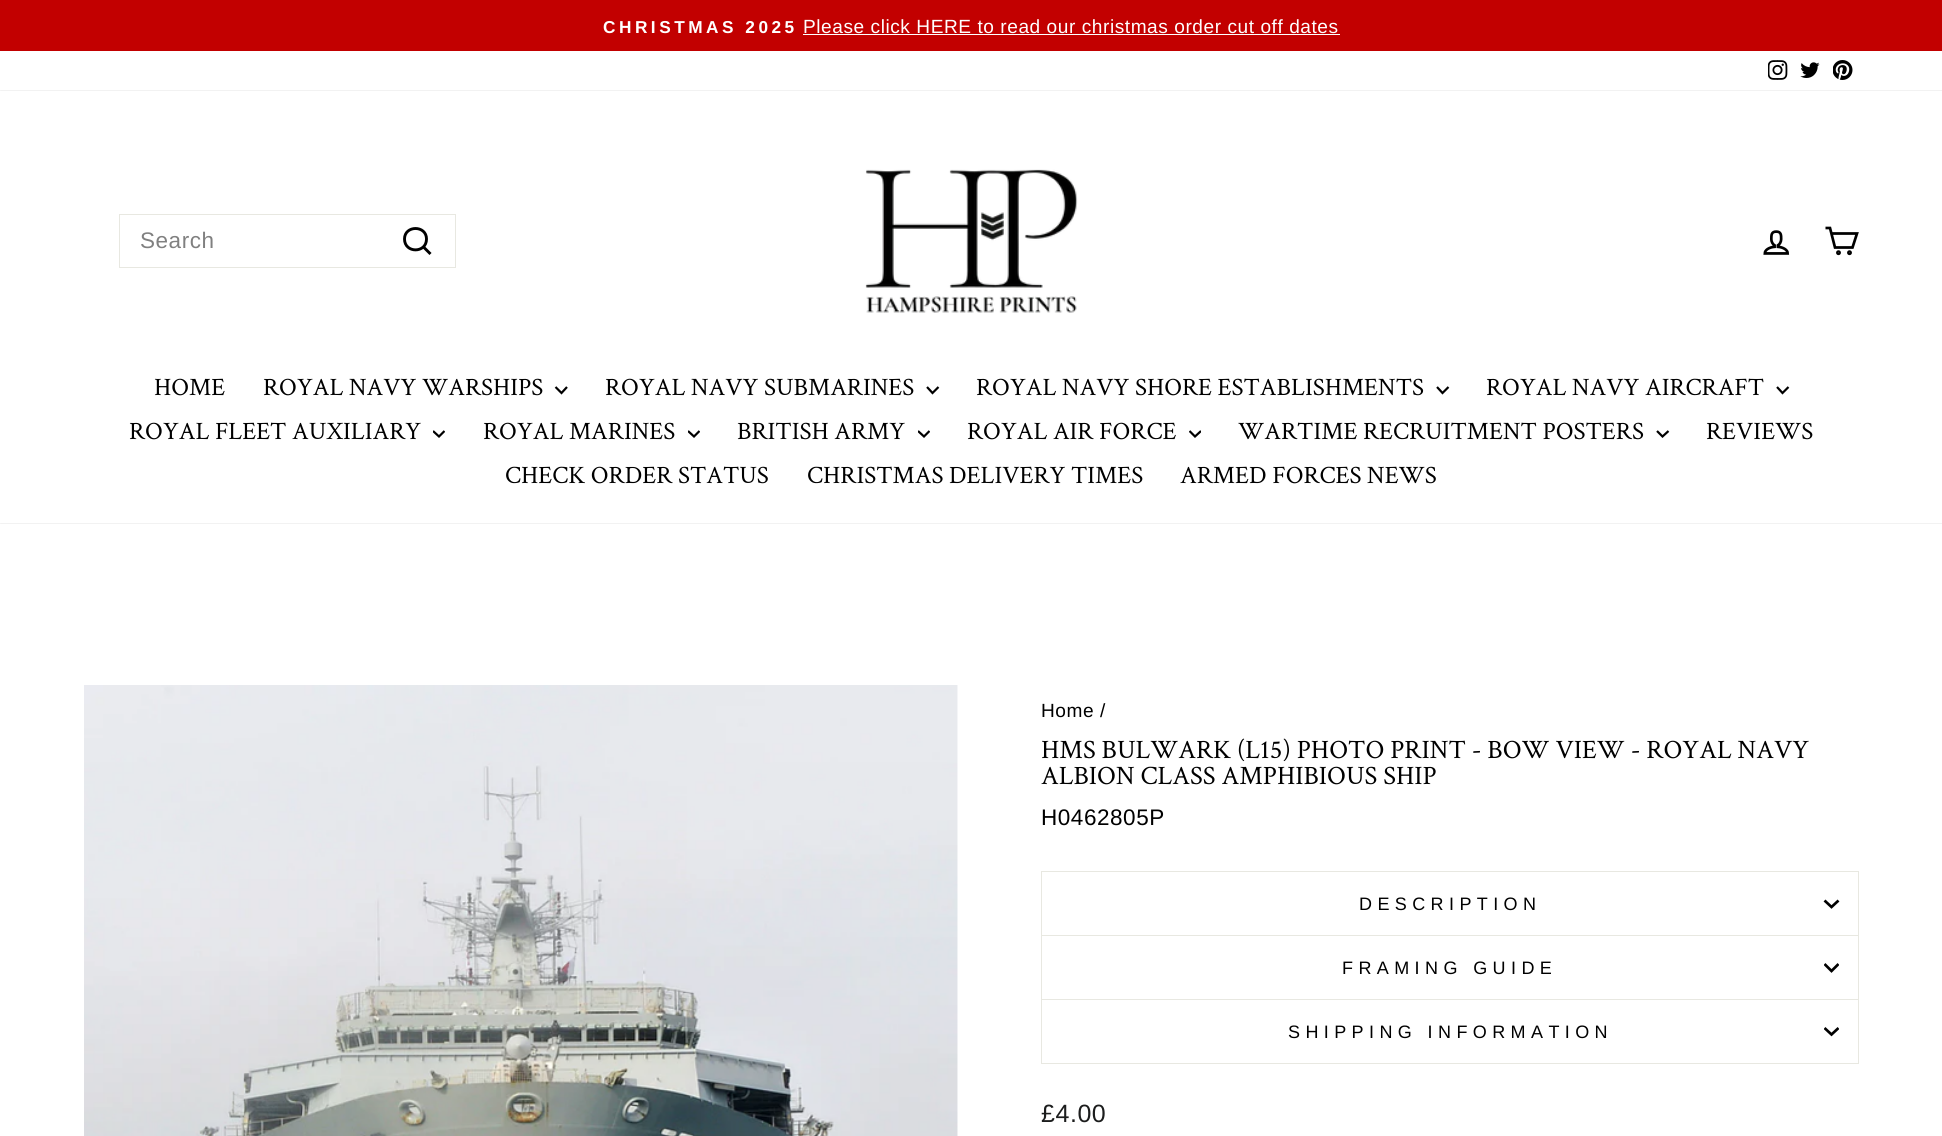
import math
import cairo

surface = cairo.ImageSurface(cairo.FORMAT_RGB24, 1942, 1136)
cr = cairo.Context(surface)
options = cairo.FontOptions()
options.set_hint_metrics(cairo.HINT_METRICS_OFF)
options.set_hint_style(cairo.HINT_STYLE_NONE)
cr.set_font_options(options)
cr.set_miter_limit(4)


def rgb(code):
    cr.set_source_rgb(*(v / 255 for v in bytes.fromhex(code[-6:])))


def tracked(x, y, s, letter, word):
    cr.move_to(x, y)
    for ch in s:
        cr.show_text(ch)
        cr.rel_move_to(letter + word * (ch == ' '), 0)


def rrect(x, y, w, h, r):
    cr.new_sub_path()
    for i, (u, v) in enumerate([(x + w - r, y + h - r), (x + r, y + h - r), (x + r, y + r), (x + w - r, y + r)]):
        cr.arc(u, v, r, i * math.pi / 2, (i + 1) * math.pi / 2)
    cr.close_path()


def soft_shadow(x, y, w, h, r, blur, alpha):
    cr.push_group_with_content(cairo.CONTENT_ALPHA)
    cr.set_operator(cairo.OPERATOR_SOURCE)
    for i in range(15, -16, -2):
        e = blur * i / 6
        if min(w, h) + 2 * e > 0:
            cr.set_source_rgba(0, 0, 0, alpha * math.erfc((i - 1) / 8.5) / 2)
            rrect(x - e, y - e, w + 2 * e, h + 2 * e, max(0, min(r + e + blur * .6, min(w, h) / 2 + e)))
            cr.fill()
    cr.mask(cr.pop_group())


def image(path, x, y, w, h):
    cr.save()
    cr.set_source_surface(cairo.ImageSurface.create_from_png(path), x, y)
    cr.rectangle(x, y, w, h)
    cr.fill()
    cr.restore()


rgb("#ffffff")
cr.paint()
rgb("#c20000")
cr.rectangle(0, 0, 1942, 51)
cr.fill()
rgb("#ffffff")
cr.rectangle(803, 34, 537, 1)
cr.fill()
image("img/1.png", 1768, 60, 20, 20)
image("img/2.png", 1800, 62, 20, 16)
image("img/3.png", 1833, 60, 20, 20)
rgb("#000000")
soft_shadow(0, 91, 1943, 432, 0, 0.5, 0.2)
rgb("#ffffff")
cr.rectangle(0, 91, 1942, 432)
cr.fill()
cr.rectangle(119.5, 214.5, 336, 53)
rgb("#e8e8e1")
cr.set_line_width(1)
cr.stroke()
cr.new_path()
cr.move_to(426.5, 239)
cr.curve_to(426.5, 253.5, 404.5, 253.5, 404.5, 239)
cr.curve_to(404.5, 225, 426.5, 225, 426.5, 239)
cr.close_path()
cr.move_to(430.5, 254)
cr.line_to(423.5, 247)
rgb("#000000")
cr.set_line_width(2.9)
cr.stroke()
image("img/4.png", 865, 169, 213, 144)
image("img/5.png", 1763, 230, 27, 25)
cr.new_path()
cr.move_to(1831.5, 233.5)
cr.line_to(1857, 233.5)
cr.line_to(1852.5, 247.5)
cr.line_to(1835, 247.5)
cr.line_to(1830, 228)
cr.line_to(1825.5, 228)
cr.set_line_width(2.7)
cr.stroke()
cr.arc(1838.5, 252.7, 1.1, 0, 2 * math.pi)
cr.stroke()
cr.arc(1849.5, 252.7, 1.1, 0, 2 * math.pi)
cr.stroke()
cr.new_path()
cr.move_to(555.5, 387)
cr.line_to(561.5, 393)
cr.line_to(567, 387)
cr.set_line_width(2.2)
cr.stroke()
cr.new_path()
cr.move_to(927, 387)
cr.line_to(932.5, 393)
cr.line_to(938.5, 387)
cr.stroke()
cr.new_path()
cr.move_to(1437, 387)
cr.line_to(1442.5, 393)
cr.line_to(1448.5, 387)
cr.stroke()
cr.new_path()
cr.move_to(1777, 387)
cr.line_to(1782.5, 393)
cr.line_to(1788.5, 387)
cr.stroke()
cr.save()
cr.rectangle(433, 428, 12, 12)
cr.clip()
cr.new_path()
cr.move_to(433, 431)
cr.line_to(439, 436.5)
cr.line_to(444.5, 431)
cr.stroke()
cr.restore()
cr.save()
cr.rectangle(688, 428, 12, 12)
cr.clip()
cr.new_path()
cr.move_to(688, 431)
cr.line_to(694, 436.5)
cr.line_to(699.5, 431)
cr.stroke()
cr.restore()
cr.save()
cr.rectangle(918, 428, 12, 12)
cr.clip()
cr.new_path()
cr.move_to(918, 431)
cr.line_to(924, 436.5)
cr.line_to(929.5, 431)
cr.stroke()
cr.restore()
cr.save()
cr.rectangle(1189, 428, 12, 12)
cr.clip()
cr.new_path()
cr.move_to(1189.5, 431)
cr.line_to(1195, 436.5)
cr.line_to(1201, 431)
cr.stroke()
cr.restore()
cr.new_path()
cr.move_to(1657, 431)
cr.line_to(1662.5, 436.5)
cr.line_to(1668.5, 431)
cr.stroke()
image("img/6.png", 84, 685, 874, 451)
for x, y, w, h, color in [
    (1041, 935, 818, 1, "#e8e8e1"),
    (1041, 871, 818, 1, "#e8e8e1"),
    (1858, 871, 1, 64, "#e8e8e1"),
    (1041, 871, 1, 64, "#e8e8e1"),
]:
    rgb(color)
    cr.rectangle(x, y, w, h)
    cr.fill()
cr.new_path()
cr.move_to(1824.5, 900.5)
cr.line_to(1831.5, 907)
cr.line_to(1838.5, 900.5)
rgb("#000000")
cr.set_line_width(2.7)
cr.stroke()
for x, y, w, h, color in [
    (1041, 999, 818, 1, "#e8e8e1"),
    (1858, 936, 1, 63, "#e8e8e1"),
    (1041, 936, 1, 63, "#e8e8e1"),
]:
    rgb(color)
    cr.rectangle(x, y, w, h)
    cr.fill()
cr.save()
cr.rectangle(1824, 960, 15, 15)
cr.clip()
cr.new_path()
cr.move_to(1824.5, 964)
cr.line_to(1831.5, 971)
cr.line_to(1838.5, 964)
rgb("#000000")
cr.stroke()
cr.restore()
for x, y, w, h, color in [
    (1041, 1063, 818, 1, "#e8e8e1"),
    (1858, 1000, 1, 63, "#e8e8e1"),
    (1041, 1000, 1, 63, "#e8e8e1"),
]:
    rgb(color)
    cr.rectangle(x, y, w, h)
    cr.fill()
cr.save()
cr.rectangle(1824, 1024, 15, 15)
cr.clip()
cr.new_path()
cr.move_to(1824.5, 1028)
cr.line_to(1831.5, 1034.5)
cr.line_to(1838.5, 1028)
rgb("#000000")
cr.stroke()
cr.restore()
cr.select_font_face("Liberation Sans", cairo.FONT_SLANT_NORMAL, cairo.FONT_WEIGHT_BOLD)
cr.set_font_size(17.25)
rgb("#ffffff")
tracked(603, 33, "CHRISTMAS 2025", 3.5, 0)
cr.select_font_face("Liberation Sans")
cr.set_font_size(19.1)
tracked(803, 33, "Please click HERE to read our christmas order cut off dates", 0.55, 0)
cr.set_font_size(22.5)
rgb("#808080")
tracked(140, 248, "Search", 0.55, 0)
cr.select_font_face("Crimson Text")
cr.set_font_size(25)
rgb("#000000")
for x, y, s in [
    (154, 395, "HOME"),
    (263, 395, "ROYAL NAVY WARSHIPS"),
    (605, 395, "ROYAL NAVY SUBMARINES"),
    (976, 395, "ROYAL NAVY SHORE ESTABLISHMENTS"),
    (1486, 395, "ROYAL NAVY AIRCRAFT"),
    (129, 439, "ROYAL FLEET AUXILIARY"),
    (483, 439, "ROYAL MARINES"),
    (737, 439, "BRITISH ARMY"),
    (967, 439, "ROYAL AIR FORCE"),
    (1238, 439, "WARTIME RECRUITMENT POSTERS"),
    (1706, 439, "REVIEWS"),
    (505, 483, "CHECK ORDER STATUS"),
    (807, 483, "CHRISTMAS DELIVERY TIMES"),
    (1180, 483, "ARMED FORCES NEWS"),
]:
    cr.move_to(x, y)
    cr.show_text(s)
cr.select_font_face("Liberation Sans")
cr.set_font_size(19.1)
tracked(1041, 717, "Home /", 0.55, 0)
cr.select_font_face("Crimson Text")
cr.set_font_size(26.55)
cr.move_to(1041, 758)
cr.show_text("HMS BULWARK (L15) PHOTO PRINT - BOW VIEW - ROYAL NAVY")
cr.move_to(1041, 784)
cr.show_text("ALBION CLASS AMPHIBIOUS SHIP")
cr.select_font_face("Liberation Sans")
cr.set_font_size(22.5)
tracked(1041, 825, "H0462805P", 0.55, 0)
cr.set_font_size(18)
for x, y, s in [
    (1359, 910, "DESCRIPTION"),
    (1342, 974, "FRAMING GUIDE"),
    (1288, 1038, "SHIPPING INFORMATION"),
]:
    tracked(x, y, s, 5.4, 0)
cr.set_font_size(25)
rgb("#1c1d1d")
tracked(1041, 1122, "£4.00", 0.55, 0)
surface.write_to_png("page.png")
